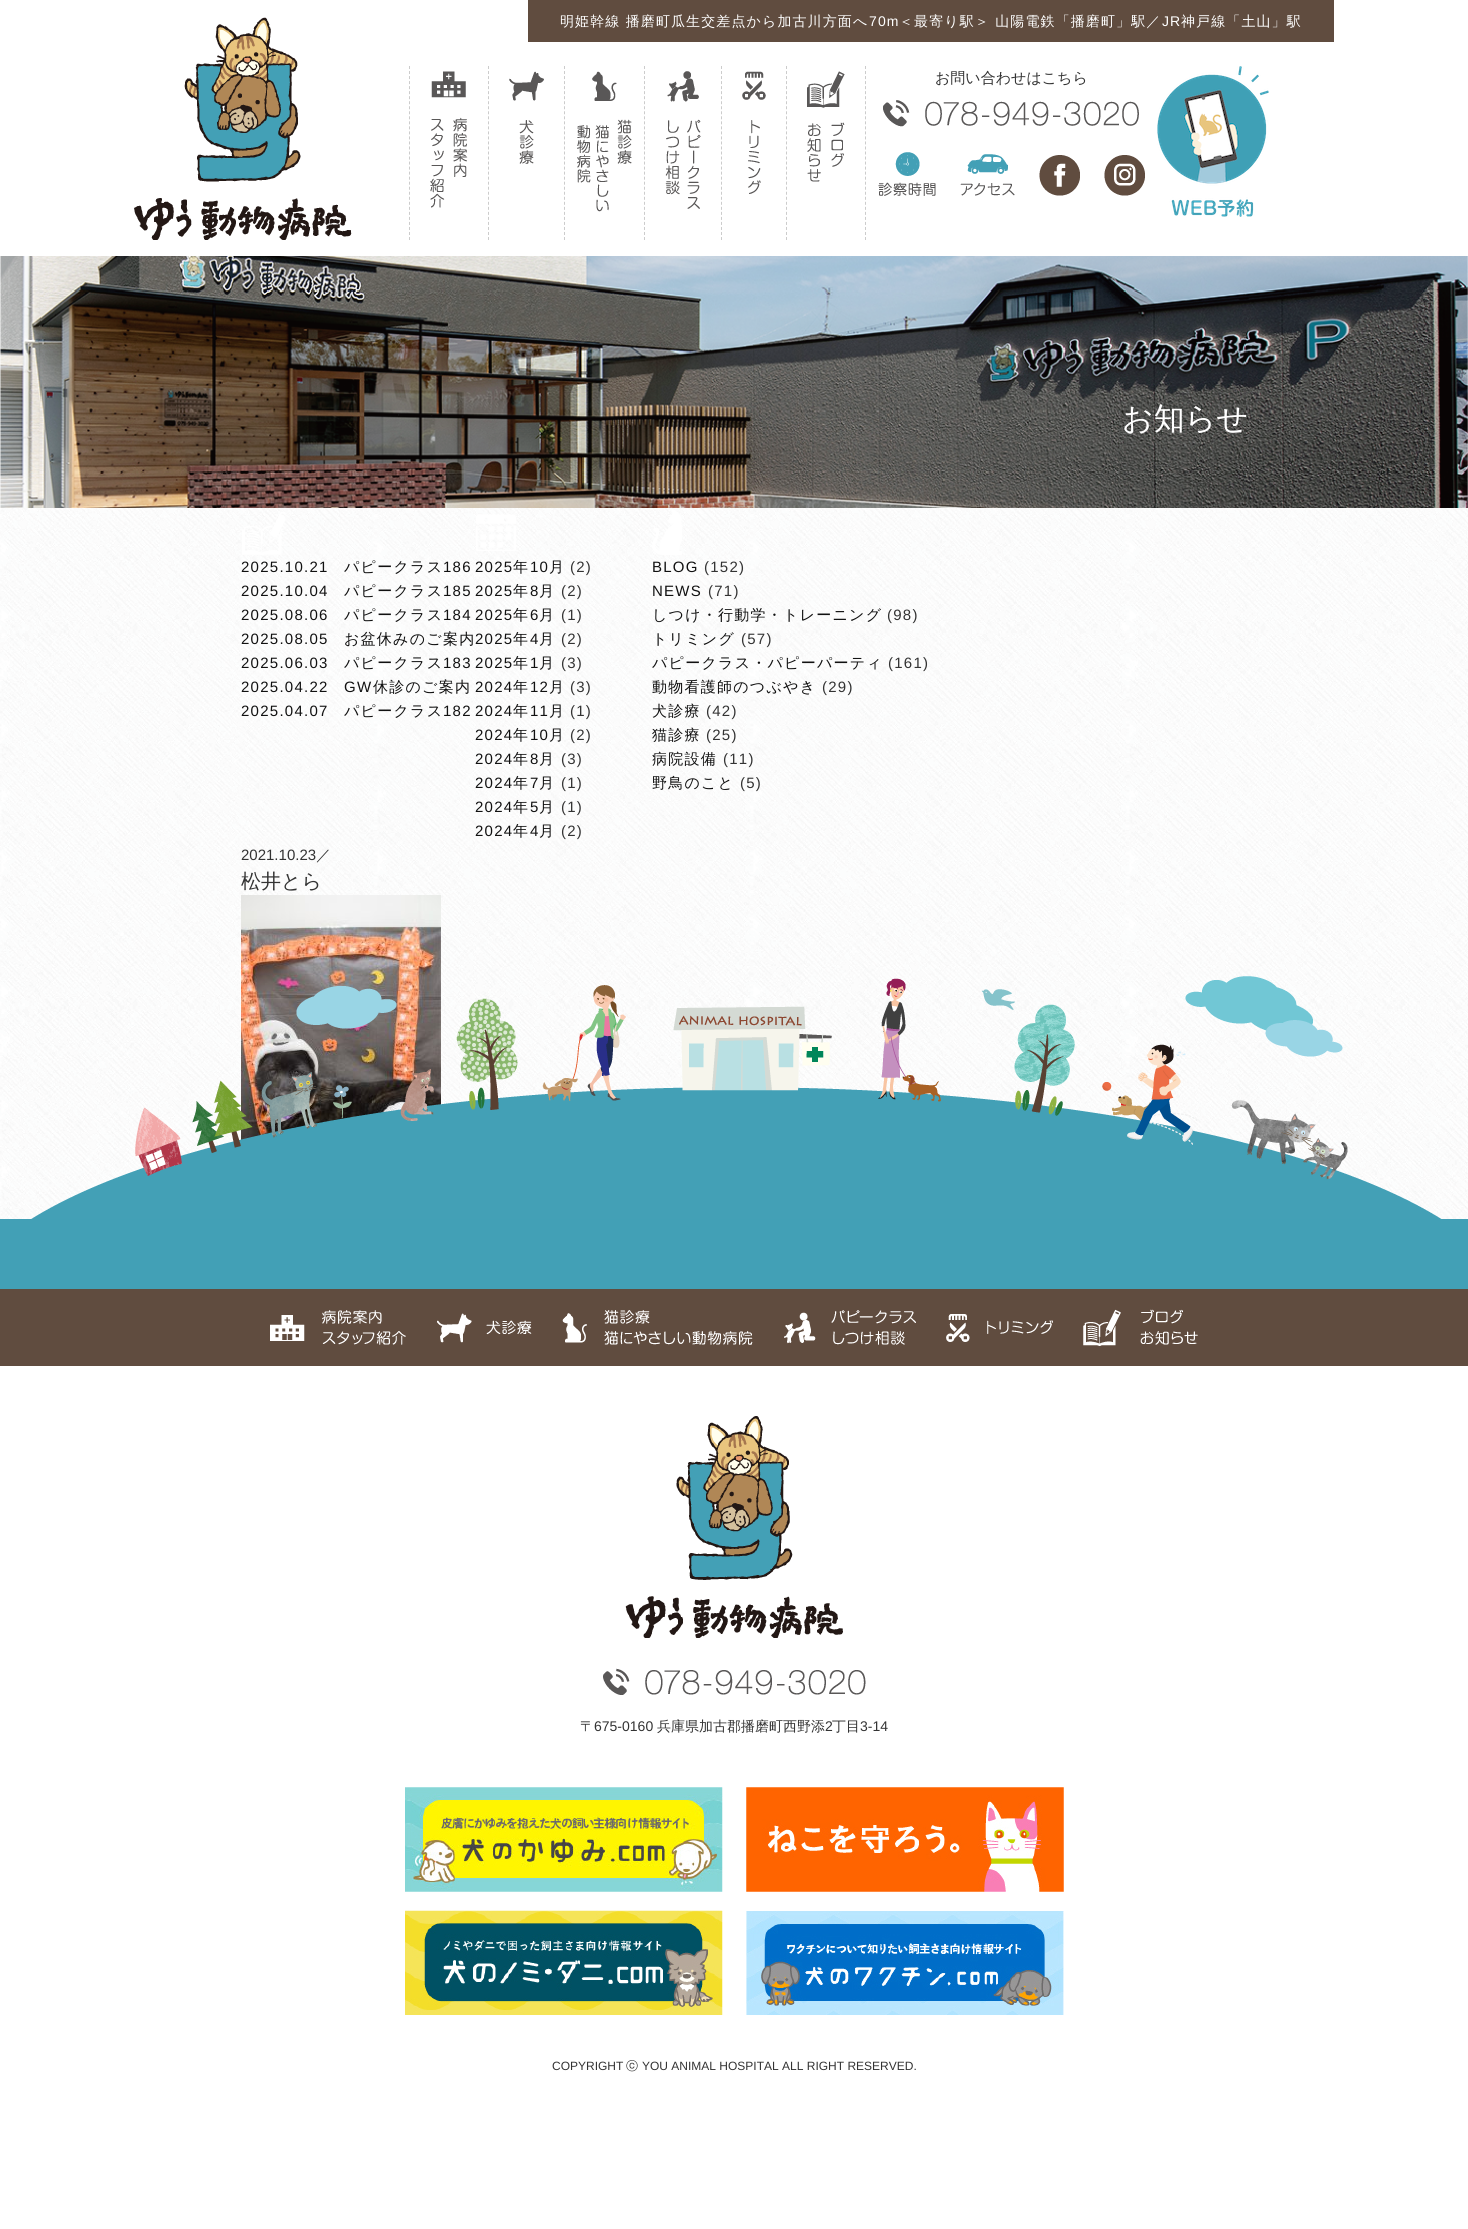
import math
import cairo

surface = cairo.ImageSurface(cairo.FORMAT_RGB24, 1468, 2229)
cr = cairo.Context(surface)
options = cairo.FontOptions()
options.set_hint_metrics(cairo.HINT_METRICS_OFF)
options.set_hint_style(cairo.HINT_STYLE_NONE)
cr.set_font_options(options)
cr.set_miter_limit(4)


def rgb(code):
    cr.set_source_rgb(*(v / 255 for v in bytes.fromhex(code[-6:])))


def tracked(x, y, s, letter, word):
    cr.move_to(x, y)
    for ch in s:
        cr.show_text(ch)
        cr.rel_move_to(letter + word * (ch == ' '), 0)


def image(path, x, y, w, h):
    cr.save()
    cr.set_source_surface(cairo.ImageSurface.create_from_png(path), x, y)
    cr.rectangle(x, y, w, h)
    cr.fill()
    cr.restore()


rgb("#ffffff")
cr.paint()
image("img/1.png", 134, 17, 218, 223)
rgb("#604c3f")
cr.rectangle(528, 0, 806, 42)
cr.fill()
cr.new_path()
cr.move_to(488.5, 66)
cr.line_to(488.5, 240)
rgb("#cccccc")
cr.set_line_width(1)
cr.set_dash([3, 2.03])
cr.stroke()
cr.new_path()
cr.move_to(409.5, 66)
cr.line_to(409.5, 240)
cr.stroke()
image("img/2.png", 430, 71, 38, 137)
cr.new_path()
cr.move_to(564.5, 66)
cr.line_to(564.5, 240)
cr.stroke()
image("img/3.png", 509, 71, 35, 93)
cr.new_path()
cr.move_to(644.5, 66)
cr.line_to(644.5, 240)
cr.stroke()
image("img/4.png", 577, 71, 55, 141)
cr.new_path()
cr.move_to(721.5, 66)
cr.line_to(721.5, 240)
cr.stroke()
image("img/5.png", 665, 71, 36, 138)
cr.new_path()
cr.move_to(786.5, 66)
cr.line_to(786.5, 240)
cr.stroke()
image("img/6.png", 742, 71, 24, 123)
cr.new_path()
cr.move_to(865.5, 66)
cr.line_to(865.5, 240)
cr.stroke()
image("img/7.png", 807, 71, 38, 111)
image("img/8.png", 883, 100, 256, 27)
image("img/9.png", 878, 152, 58, 44)
image("img/10.png", 960, 154, 55, 42)
image("img/11.png", 1039, 155, 41, 41)
image("img/12.png", 1104, 155, 41, 41)
image("img/13.png", 1157, 66, 112, 151)
image("img/14.png", 0, 256, 1468, 963)
image("img/15.png", 0, 256, 1468, 252)
image("img/16.png", 242, 512, 43, 43)
image("img/17.png", 476, 514, 40, 37)
image("img/18.png", 652, 509, 30, 46)
image("img/19.png", 241, 895, 200, 245)
rgb("#42a0b6")
cr.rectangle(0, 1219, 1468, 70)
cr.fill()
image("img/20.png", 31, 976, 1411, 243)
rgb("#604c3f")
cr.rectangle(0, 1289, 1468, 77)
cr.fill()
image("img/21.png", 270, 1310, 136, 35)
image("img/22.png", 437, 1313, 95, 30)
image("img/23.png", 562, 1310, 191, 35)
image("img/24.png", 784, 1310, 132, 35)
image("img/25.png", 946, 1314, 107, 28)
image("img/26.png", 1083, 1309, 115, 37)
image("img/27.png", 625, 1416, 218, 222)
image("img/28.png", 603, 1668, 263, 27)
image("img/29.png", 405, 1787, 318, 105)
image("img/30.png", 746, 1787, 318, 105)
image("img/31.png", 405, 1910, 318, 105)
image("img/32.png", 746, 1911, 318, 104)
cr.select_font_face("WenQuanYi Zen Hei Medium")
cr.set_font_size(14)
rgb("#ffffff")
tracked(560, 26, "明姫幹線 播磨町瓜生交差点から加古川方面へ", 1.1, 0)
cr.select_font_face("Liberation Sans")
tracked(869, 26, "70m", 1.1, 0)
cr.select_font_face("WenQuanYi Zen Hei Medium")
tracked(899, 26, "＜最寄り駅＞ 山陽電鉄「播磨町」駅／", 1.1, 0)
cr.select_font_face("Liberation Sans")
tracked(1162, 26, "JR", 1.1, 0)
cr.select_font_face("WenQuanYi Zen Hei Medium")
tracked(1181, 26, "神戸線「土山」駅", 1.1, 0)
cr.set_font_size(15)
rgb("#333333")
cr.move_to(935, 83)
cr.show_text("お問い合わせはこちら")
cr.set_font_size(31)
rgb("#ffffff")
cr.move_to(1122, 429)
cr.show_text("お知らせ")
cr.select_font_face("Liberation Sans")
cr.set_font_size(15)
rgb("#111111")
tracked(241, 572, "2025.10.21", 1.25, 0)
cr.select_font_face("WenQuanYi Zen Hei Medium")
tracked(344, 572, "パピークラス", 1.25, 0)
cr.select_font_face("Liberation Sans")
tracked(443, 572, "186", 1.25, 0)
tracked(241, 596, "2025.10.04", 1.25, 0)
cr.select_font_face("WenQuanYi Zen Hei Medium")
tracked(344, 596, "パピークラス", 1.25, 0)
cr.select_font_face("Liberation Sans")
tracked(443, 596, "185", 1.25, 0)
tracked(241, 620, "2025.08.06", 1.25, 0)
cr.select_font_face("WenQuanYi Zen Hei Medium")
tracked(344, 620, "パピークラス", 1.25, 0)
cr.select_font_face("Liberation Sans")
tracked(443, 620, "184", 1.25, 0)
tracked(241, 644, "2025.08.05", 1.25, 0)
cr.select_font_face("WenQuanYi Zen Hei Medium")
tracked(344, 644, "お盆休みのご案内", 1.25, 0)
cr.select_font_face("Liberation Sans")
tracked(241, 668, "2025.06.03", 1.25, 0)
cr.select_font_face("WenQuanYi Zen Hei Medium")
tracked(344, 668, "パピークラス", 1.25, 0)
cr.select_font_face("Liberation Sans")
for x, y, s in [
    (443, 668, "183"),
    (241, 692, "2025.04.22"),
    (344, 692, "GW"),
]:
    tracked(x, y, s, 1.25, 0)
cr.select_font_face("WenQuanYi Zen Hei Medium")
tracked(373, 692, "休診のご案内", 1.25, 0)
cr.select_font_face("Liberation Sans")
tracked(241, 716, "2025.04.07", 1.25, 0)
cr.select_font_face("WenQuanYi Zen Hei Medium")
tracked(344, 716, "パピークラス", 1.25, 0)
cr.select_font_face("Liberation Sans")
tracked(443, 716, "182", 1.25, 0)
tracked(475, 572, "2025", 1.25, 0)
cr.select_font_face("WenQuanYi Zen Hei Medium")
tracked(513, 572, "年", 1.25, 0)
cr.select_font_face("Liberation Sans")
tracked(530, 572, "10", 1.25, 0)
cr.select_font_face("WenQuanYi Zen Hei Medium")
tracked(549, 572, "月", 1.25, 0)
cr.select_font_face("Liberation Sans")
rgb("#333333")
tracked(570, 572, "(2)", 1.25, 0)
rgb("#111111")
tracked(475, 596, "2025", 1.25, 0)
cr.select_font_face("WenQuanYi Zen Hei Medium")
tracked(513, 596, "年", 1.25, 0)
cr.select_font_face("Liberation Sans")
tracked(530, 596, "8", 1.25, 0)
cr.select_font_face("WenQuanYi Zen Hei Medium")
tracked(539, 596, "月", 1.25, 0)
cr.select_font_face("Liberation Sans")
rgb("#333333")
tracked(561, 596, "(2)", 1.25, 0)
rgb("#111111")
tracked(475, 620, "2025", 1.25, 0)
cr.select_font_face("WenQuanYi Zen Hei Medium")
tracked(513, 620, "年", 1.25, 0)
cr.select_font_face("Liberation Sans")
tracked(530, 620, "6", 1.25, 0)
cr.select_font_face("WenQuanYi Zen Hei Medium")
tracked(539, 620, "月", 1.25, 0)
cr.select_font_face("Liberation Sans")
rgb("#333333")
tracked(561, 620, "(1)", 1.25, 0)
rgb("#111111")
tracked(475, 644, "2025", 1.25, 0)
cr.select_font_face("WenQuanYi Zen Hei Medium")
tracked(513, 644, "年", 1.25, 0)
cr.select_font_face("Liberation Sans")
tracked(530, 644, "4", 1.25, 0)
cr.select_font_face("WenQuanYi Zen Hei Medium")
tracked(539, 644, "月", 1.25, 0)
cr.select_font_face("Liberation Sans")
rgb("#333333")
tracked(561, 644, "(2)", 1.25, 0)
rgb("#111111")
tracked(475, 668, "2025", 1.25, 0)
cr.select_font_face("WenQuanYi Zen Hei Medium")
tracked(513, 668, "年", 1.25, 0)
cr.select_font_face("Liberation Sans")
tracked(530, 668, "1", 1.25, 0)
cr.select_font_face("WenQuanYi Zen Hei Medium")
tracked(539, 668, "月", 1.25, 0)
cr.select_font_face("Liberation Sans")
rgb("#333333")
tracked(561, 668, "(3)", 1.25, 0)
rgb("#111111")
tracked(475, 692, "2024", 1.25, 0)
cr.select_font_face("WenQuanYi Zen Hei Medium")
tracked(513, 692, "年", 1.25, 0)
cr.select_font_face("Liberation Sans")
tracked(530, 692, "12", 1.25, 0)
cr.select_font_face("WenQuanYi Zen Hei Medium")
tracked(549, 692, "月", 1.25, 0)
cr.select_font_face("Liberation Sans")
rgb("#333333")
tracked(570, 692, "(3)", 1.25, 0)
rgb("#111111")
tracked(475, 716, "2024", 1.25, 0)
cr.select_font_face("WenQuanYi Zen Hei Medium")
tracked(513, 716, "年", 1.25, 0)
cr.select_font_face("Liberation Sans")
tracked(530, 716, "11", 1.25, 0)
cr.select_font_face("WenQuanYi Zen Hei Medium")
tracked(549, 716, "月", 1.25, 0)
cr.select_font_face("Liberation Sans")
rgb("#333333")
tracked(570, 716, "(1)", 1.25, 0)
rgb("#111111")
tracked(475, 740, "2024", 1.25, 0)
cr.select_font_face("WenQuanYi Zen Hei Medium")
tracked(513, 740, "年", 1.25, 0)
cr.select_font_face("Liberation Sans")
tracked(530, 740, "10", 1.25, 0)
cr.select_font_face("WenQuanYi Zen Hei Medium")
tracked(549, 740, "月", 1.25, 0)
cr.select_font_face("Liberation Sans")
rgb("#333333")
tracked(570, 740, "(2)", 1.25, 0)
rgb("#111111")
tracked(475, 764, "2024", 1.25, 0)
cr.select_font_face("WenQuanYi Zen Hei Medium")
tracked(513, 764, "年", 1.25, 0)
cr.select_font_face("Liberation Sans")
tracked(530, 764, "8", 1.25, 0)
cr.select_font_face("WenQuanYi Zen Hei Medium")
tracked(539, 764, "月", 1.25, 0)
cr.select_font_face("Liberation Sans")
rgb("#333333")
tracked(561, 764, "(3)", 1.25, 0)
rgb("#111111")
tracked(475, 788, "2024", 1.25, 0)
cr.select_font_face("WenQuanYi Zen Hei Medium")
tracked(513, 788, "年", 1.25, 0)
cr.select_font_face("Liberation Sans")
tracked(530, 788, "7", 1.25, 0)
cr.select_font_face("WenQuanYi Zen Hei Medium")
tracked(539, 788, "月", 1.25, 0)
cr.select_font_face("Liberation Sans")
rgb("#333333")
tracked(561, 788, "(1)", 1.25, 0)
rgb("#111111")
tracked(475, 812, "2024", 1.25, 0)
cr.select_font_face("WenQuanYi Zen Hei Medium")
tracked(513, 812, "年", 1.25, 0)
cr.select_font_face("Liberation Sans")
tracked(530, 812, "5", 1.25, 0)
cr.select_font_face("WenQuanYi Zen Hei Medium")
tracked(539, 812, "月", 1.25, 0)
cr.select_font_face("Liberation Sans")
rgb("#333333")
tracked(561, 812, "(1)", 1.25, 0)
rgb("#111111")
tracked(475, 836, "2024", 1.25, 0)
cr.select_font_face("WenQuanYi Zen Hei Medium")
tracked(513, 836, "年", 1.25, 0)
cr.select_font_face("Liberation Sans")
tracked(530, 836, "4", 1.25, 0)
cr.select_font_face("WenQuanYi Zen Hei Medium")
tracked(539, 836, "月", 1.25, 0)
cr.select_font_face("Liberation Sans")
rgb("#333333")
tracked(561, 836, "(2)", 1.25, 0)
rgb("#111111")
tracked(652, 572, "BLOG", 1.25, 0)
rgb("#333333")
tracked(704, 572, "(152)", 1.25, 0)
rgb("#111111")
tracked(652, 596, "NEWS", 1.25, 0)
rgb("#333333")
tracked(708, 596, "(71)", 1.25, 0)
cr.select_font_face("WenQuanYi Zen Hei Medium")
rgb("#111111")
tracked(652, 620, "しつけ・行動学・トレーニング", 1.25, 0)
cr.select_font_face("Liberation Sans")
rgb("#333333")
tracked(887, 620, "(98)", 1.25, 0)
cr.select_font_face("WenQuanYi Zen Hei Medium")
rgb("#111111")
tracked(652, 644, "トリミング", 1.25, 0)
cr.select_font_face("Liberation Sans")
rgb("#333333")
tracked(741, 644, "(57)", 1.25, 0)
cr.select_font_face("WenQuanYi Zen Hei Medium")
rgb("#111111")
tracked(652, 668, "パピークラス・パピーパーティ", 1.25, 0)
cr.select_font_face("Liberation Sans")
rgb("#333333")
tracked(888, 668, "(161)", 1.25, 0)
cr.select_font_face("WenQuanYi Zen Hei Medium")
rgb("#111111")
tracked(652, 692, "動物看護師のつぶやき", 1.25, 0)
cr.select_font_face("Liberation Sans")
rgb("#333333")
tracked(822, 692, "(29)", 1.25, 0)
cr.select_font_face("WenQuanYi Zen Hei Medium")
rgb("#111111")
tracked(652, 716, "犬診療", 1.25, 0)
cr.select_font_face("Liberation Sans")
rgb("#333333")
tracked(706, 716, "(42)", 1.25, 0)
cr.select_font_face("WenQuanYi Zen Hei Medium")
rgb("#111111")
tracked(652, 740, "猫診療", 1.25, 0)
cr.select_font_face("Liberation Sans")
rgb("#333333")
tracked(706, 740, "(25)", 1.25, 0)
cr.select_font_face("WenQuanYi Zen Hei Medium")
rgb("#111111")
tracked(652, 764, "病院設備", 1.25, 0)
cr.select_font_face("Liberation Sans")
rgb("#333333")
tracked(723, 764, "(11)", 1.25, 0)
cr.select_font_face("WenQuanYi Zen Hei Medium")
rgb("#111111")
tracked(652, 788, "野鳥のこと", 1.25, 0)
cr.select_font_face("Liberation Sans")
rgb("#333333")
tracked(740, 788, "(5)", 1.25, 0)
cr.move_to(241, 860)
cr.show_text("2021.10.23")
cr.select_font_face("WenQuanYi Zen Hei Medium")
cr.move_to(316, 860)
cr.show_text("／")
cr.set_font_size(20)
cr.move_to(241, 888)
cr.show_text("松井とら")
cr.set_font_size(14)
cr.move_to(580, 1731)
cr.show_text("〒")
cr.select_font_face("Liberation Sans")
cr.move_to(594, 1731)
cr.show_text("675-0160")
cr.select_font_face("WenQuanYi Zen Hei Medium")
cr.move_to(657, 1731)
cr.show_text("兵庫県加古郡播磨町西野添")
cr.select_font_face("Liberation Sans")
cr.move_to(825, 1731)
cr.show_text("2")
cr.select_font_face("WenQuanYi Zen Hei Medium")
cr.move_to(832, 1731)
cr.show_text("丁目")
cr.select_font_face("Liberation Sans")
cr.move_to(860, 1731)
cr.show_text("3-14")
cr.set_font_size(12)
cr.move_to(552, 2070)
cr.show_text("COPYRIGHT")
cr.select_font_face("WenQuanYi Zen Hei Medium")
cr.move_to(626, 2070)
cr.show_text("ⓒ")
cr.select_font_face("Liberation Sans")
cr.move_to(642, 2070)
cr.show_text("YOU ANIMAL HOSPITAL ALL RIGHT RESERVED.")
surface.write_to_png("page.png")
